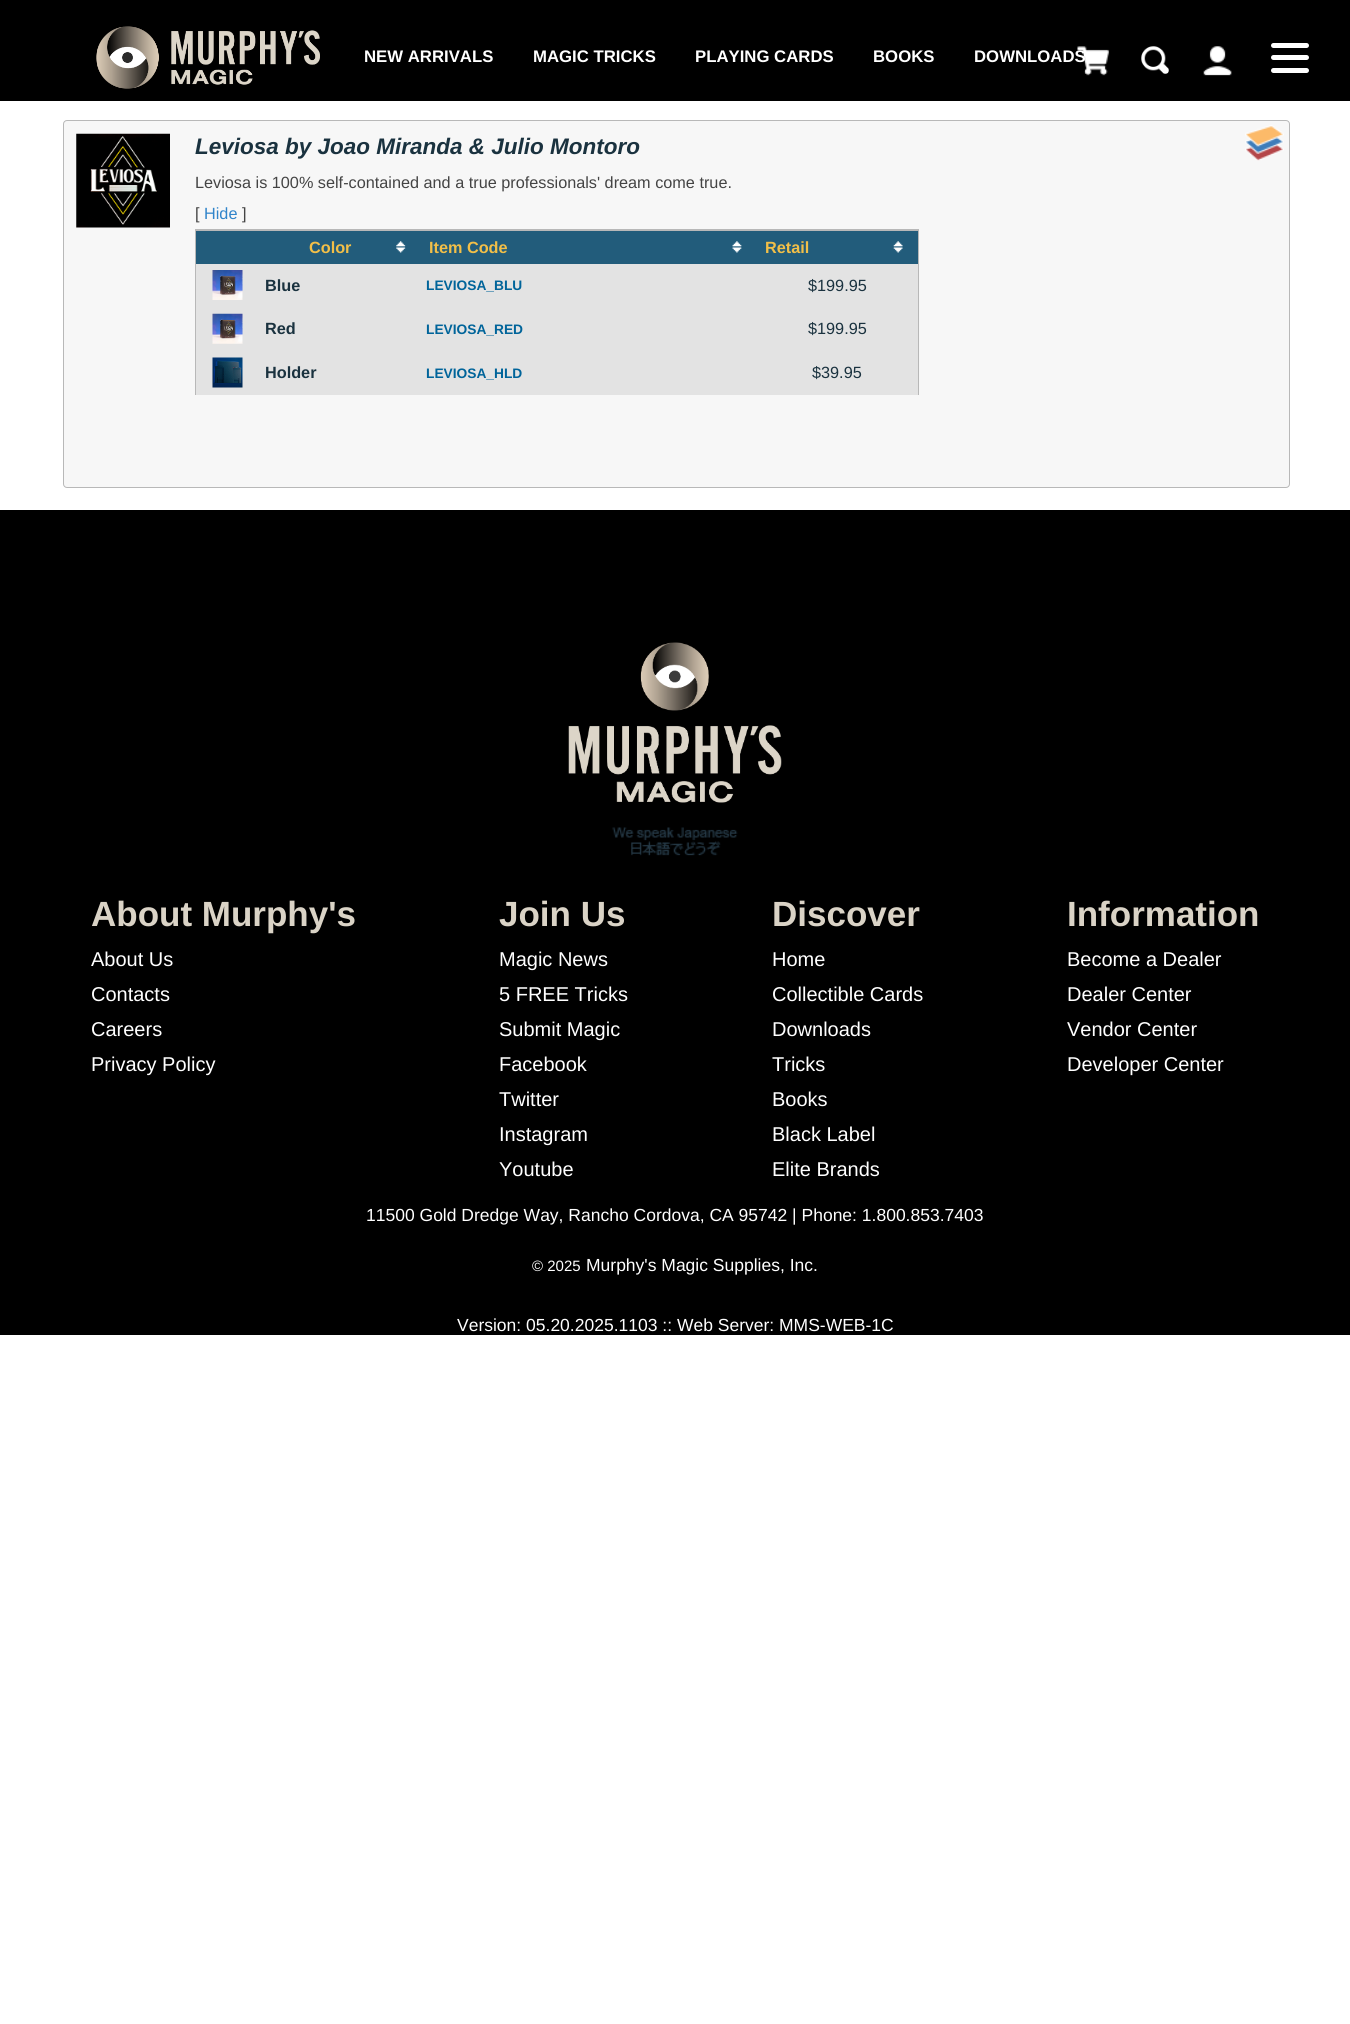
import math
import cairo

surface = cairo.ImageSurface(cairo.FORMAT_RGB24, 1350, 2024)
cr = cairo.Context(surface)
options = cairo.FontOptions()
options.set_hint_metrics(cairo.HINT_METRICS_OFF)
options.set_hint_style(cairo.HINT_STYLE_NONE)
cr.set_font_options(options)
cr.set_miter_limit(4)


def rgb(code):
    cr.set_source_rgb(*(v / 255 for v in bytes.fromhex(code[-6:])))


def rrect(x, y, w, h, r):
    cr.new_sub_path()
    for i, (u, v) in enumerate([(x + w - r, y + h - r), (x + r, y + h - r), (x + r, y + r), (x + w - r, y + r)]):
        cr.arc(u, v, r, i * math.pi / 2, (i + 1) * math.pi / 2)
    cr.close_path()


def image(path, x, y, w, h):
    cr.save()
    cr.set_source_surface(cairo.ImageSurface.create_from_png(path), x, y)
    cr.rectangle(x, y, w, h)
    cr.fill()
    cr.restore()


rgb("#ffffff")
cr.paint()
rgb("#000000")
cr.rectangle(0, 0, 1350, 101)
cr.fill()
image("img/1.png", 96, 26, 224, 63)
image("img/3.png", 1141, 46, 28, 28)
image("img/4.png", 1203, 46, 29, 30)
rgb("#ffffff")
rrect(1271, 43, 38, 5, 2.5)
cr.fill()
rrect(1271, 55, 38, 5, 2.5)
cr.fill()
rrect(1271, 68, 38, 5, 2.5)
cr.fill()
rgb("#f7f7f7")
rrect(63.5, 120.5, 1226, 367, 3.5)
cr.fill_preserve()
rgb("#b8b8b8")
cr.set_line_width(1)
cr.stroke()
image("img/5.png", 76, 133, 94, 95)
for x, y, w, h, color in [
    (196, 230, 722, 1, "#b8b8b8"),
    (195, 229, 724, 1, "#b8b8b8"),
    (918, 229, 1, 166, "#b8b8b8"),
    (195, 229, 1, 166, "#b8b8b8"),
    (196, 231, 722, 33, "#225c7b"),
]:
    rgb(color)
    cr.rectangle(x, y, w, h)
    cr.fill()
image("img/6.png", 396, 241, 10, 12)
image("img/7.png", 732, 241, 10, 12)
image("img/8.png", 893, 241, 10, 12)
rgb("#e3e3e3")
cr.rectangle(196, 264, 722, 44)
cr.fill()
image("img/9.png", 212, 270, 31, 30)
cr.rectangle(196, 308, 722, 43)
cr.fill()
image("img/10.png", 212, 313, 31, 31)
cr.rectangle(196, 351, 722, 44)
cr.fill()
image("img/11.png", 212, 357, 31, 31)
image("img/12.png", 1245, 125, 39, 36)
rgb("#000000")
cr.rectangle(0, 510, 1350, 825)
cr.fill()
image("img/13.png", 568, 642, 214, 161)
image("img/14.png", 612, 827, 126, 29)
cr.select_font_face("Liberation Sans", cairo.FONT_SLANT_NORMAL, cairo.FONT_WEIGHT_BOLD)
cr.set_font_size(16.75)
rgb("#ffffff")
for x, y, s in [
    (364, 62, "NEW ARRIVALS"),
    (533, 62, "MAGIC TRICKS"),
    (695, 62, "PLAYING CARDS"),
    (873, 62, "BOOKS"),
    (974, 62, "DOWNLOADS"),
]:
    cr.move_to(x, y)
    cr.show_text(s)
image("img/2.png", 1077, 46, 32, 30)
cr.select_font_face("Liberation Sans", cairo.FONT_SLANT_ITALIC, cairo.FONT_WEIGHT_BOLD)
cr.set_font_size(22.5)
rgb("#1a323f")
cr.move_to(195, 154)
cr.show_text("Leviosa by Joao Miranda & Julio Montoro")
cr.select_font_face("Liberation Sans")
cr.set_font_size(16.25)
rgb("#444444")
cr.move_to(195, 188)
cr.show_text("Leviosa is 100% self-contained and a true professionals' dream come true.")
cr.move_to(195, 219)
cr.show_text("[")
rgb("#3084ca")
cr.move_to(204, 219)
cr.show_text("Hide")
rgb("#444444")
cr.move_to(242, 219)
cr.show_text("]")
cr.select_font_face("Liberation Sans", cairo.FONT_SLANT_NORMAL, cairo.FONT_WEIGHT_BOLD)
rgb("#f2bf48")
for x, y, s in [
    (309, 253, "Color"),
    (429, 253, "Item Code"),
    (765, 253, "Retail"),
]:
    cr.move_to(x, y)
    cr.show_text(s)
rgb("#1a323f")
cr.move_to(265, 291)
cr.show_text("Blue")
cr.set_font_size(13.75)
rgb("#00649a")
cr.move_to(426, 290)
cr.show_text("LEVIOSA_BLU")
cr.select_font_face("Liberation Sans")
cr.set_font_size(16.25)
rgb("#1a323f")
cr.move_to(808, 291)
cr.show_text("$199.95")
cr.select_font_face("Liberation Sans", cairo.FONT_SLANT_NORMAL, cairo.FONT_WEIGHT_BOLD)
cr.move_to(265, 334)
cr.show_text("Red")
cr.set_font_size(13.75)
rgb("#00649a")
cr.move_to(426, 334)
cr.show_text("LEVIOSA_RED")
cr.select_font_face("Liberation Sans")
cr.set_font_size(16.25)
rgb("#1a323f")
cr.move_to(808, 334)
cr.show_text("$199.95")
cr.select_font_face("Liberation Sans", cairo.FONT_SLANT_NORMAL, cairo.FONT_WEIGHT_BOLD)
cr.move_to(265, 378)
cr.show_text("Holder")
cr.set_font_size(13.75)
rgb("#00649a")
cr.move_to(426, 378)
cr.show_text("LEVIOSA_HLD")
cr.select_font_face("Liberation Sans")
cr.set_font_size(16.25)
rgb("#1a323f")
cr.move_to(812, 378)
cr.show_text("$39.95")
cr.select_font_face("Liberation Sans", cairo.FONT_SLANT_NORMAL, cairo.FONT_WEIGHT_BOLD)
cr.set_font_size(35)
rgb("#dad3c6")
cr.move_to(91, 926)
cr.show_text("About Murphy's")
cr.select_font_face("Liberation Sans")
cr.set_font_size(20)
rgb("#ffffff")
for x, y, s in [
    (91, 966, "About Us"),
    (91, 1001, "Contacts"),
    (91, 1036, "Careers"),
    (91, 1071, "Privacy Policy"),
]:
    cr.move_to(x, y)
    cr.show_text(s)
cr.select_font_face("Liberation Sans", cairo.FONT_SLANT_NORMAL, cairo.FONT_WEIGHT_BOLD)
cr.set_font_size(35)
rgb("#dad3c6")
cr.move_to(499, 926)
cr.show_text("Join Us")
cr.select_font_face("Liberation Sans")
cr.set_font_size(20)
rgb("#ffffff")
for x, y, s in [
    (499, 966, "Magic News"),
    (499, 1001, "5 FREE Tricks"),
    (499, 1036, "Submit Magic"),
    (499, 1071, "Facebook"),
    (499, 1106, "Twitter"),
    (499, 1141, "Instagram"),
    (499, 1176, "Youtube"),
]:
    cr.move_to(x, y)
    cr.show_text(s)
cr.select_font_face("Liberation Sans", cairo.FONT_SLANT_NORMAL, cairo.FONT_WEIGHT_BOLD)
cr.set_font_size(35)
rgb("#dad3c6")
cr.move_to(772, 926)
cr.show_text("Discover")
cr.select_font_face("Liberation Sans")
cr.set_font_size(20)
rgb("#ffffff")
for x, y, s in [
    (772, 966, "Home"),
    (772, 1001, "Collectible Cards"),
    (772, 1036, "Downloads"),
    (772, 1071, "Tricks"),
    (772, 1106, "Books"),
    (772, 1141, "Black Label"),
    (772, 1176, "Elite Brands"),
]:
    cr.move_to(x, y)
    cr.show_text(s)
cr.select_font_face("Liberation Sans", cairo.FONT_SLANT_NORMAL, cairo.FONT_WEIGHT_BOLD)
cr.set_font_size(35)
rgb("#dad3c6")
cr.move_to(1067, 926)
cr.show_text("Information")
cr.select_font_face("Liberation Sans")
cr.set_font_size(20)
rgb("#ffffff")
for x, y, s in [
    (1067, 966, "Become a Dealer"),
    (1067, 1001, "Dealer Center"),
    (1067, 1036, "Vendor Center"),
    (1067, 1071, "Developer Center"),
]:
    cr.move_to(x, y)
    cr.show_text(s)
cr.set_font_size(17.5)
cr.move_to(366, 1221)
cr.show_text("11500 Gold Dredge Way, Rancho Cordova, CA 95742 | Phone: 1.800.853.7403")
cr.set_font_size(15)
cr.move_to(532, 1271)
cr.show_text("© 2025")
cr.set_font_size(17.5)
cr.move_to(586, 1271)
cr.show_text("Murphy's Magic Supplies, Inc.")
cr.move_to(457, 1331)
cr.show_text("Version: 05.20.2025.1103 :: Web Server: MMS-WEB-1C")
surface.write_to_png("page.png")
